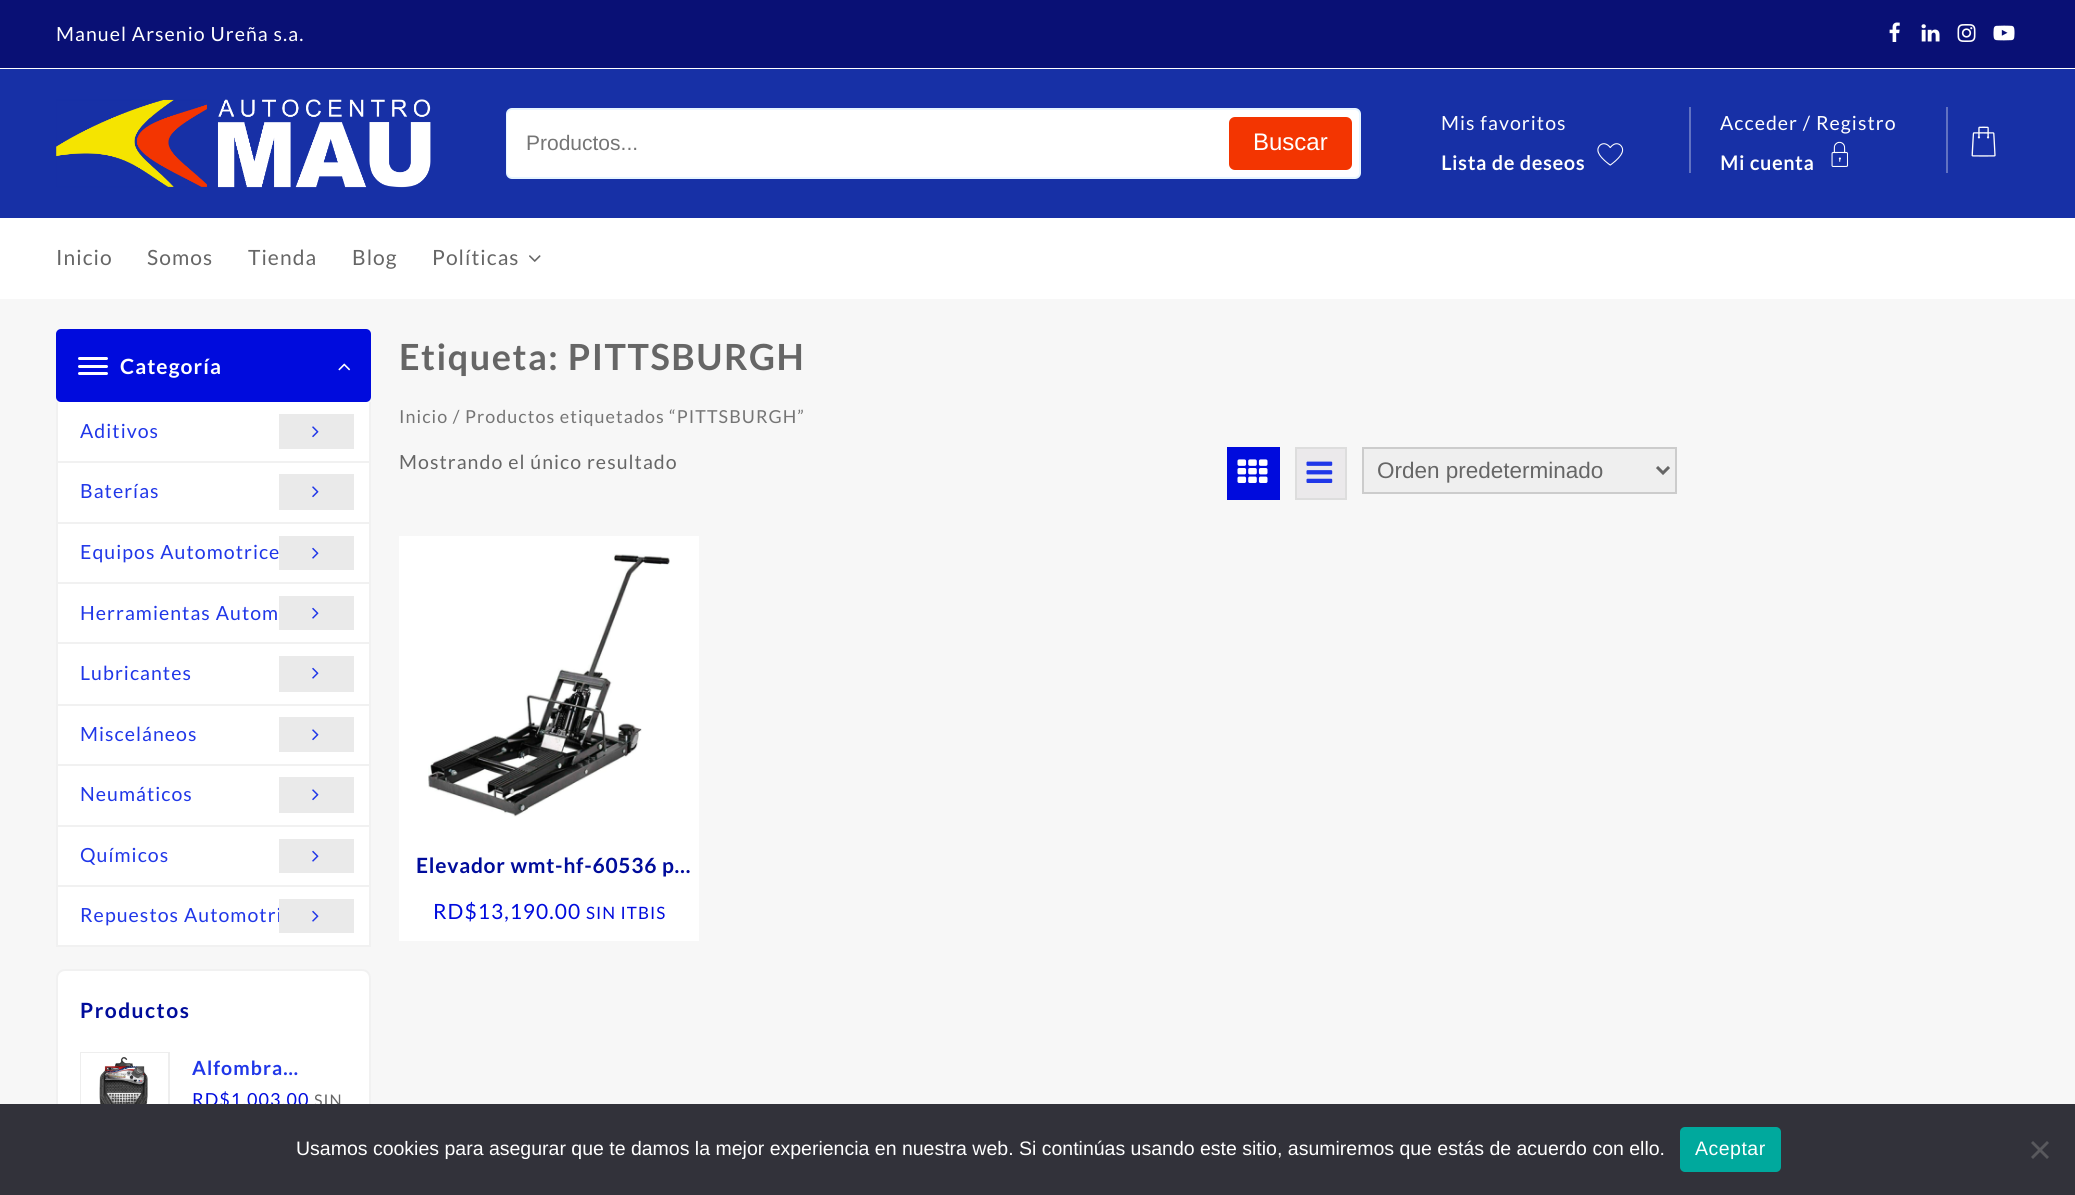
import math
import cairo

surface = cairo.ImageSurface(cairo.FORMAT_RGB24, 2075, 1195)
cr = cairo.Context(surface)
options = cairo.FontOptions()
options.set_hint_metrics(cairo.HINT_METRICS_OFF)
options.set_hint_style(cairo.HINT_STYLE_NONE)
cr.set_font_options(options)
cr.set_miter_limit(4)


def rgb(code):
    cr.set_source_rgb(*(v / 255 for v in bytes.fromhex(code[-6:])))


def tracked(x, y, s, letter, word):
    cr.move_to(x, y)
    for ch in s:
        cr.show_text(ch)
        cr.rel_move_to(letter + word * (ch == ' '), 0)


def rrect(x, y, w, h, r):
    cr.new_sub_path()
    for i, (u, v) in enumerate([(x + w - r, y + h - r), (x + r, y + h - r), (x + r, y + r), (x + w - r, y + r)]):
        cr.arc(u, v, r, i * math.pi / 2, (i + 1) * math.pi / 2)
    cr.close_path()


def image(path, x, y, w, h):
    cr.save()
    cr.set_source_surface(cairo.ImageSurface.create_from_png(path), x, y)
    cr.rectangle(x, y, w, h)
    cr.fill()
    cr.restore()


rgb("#f7f7f7")
cr.paint()
rgb("#ffffff")
cr.rectangle(0, 68, 2075, 1)
cr.fill()
rgb("#091075")
cr.rectangle(0, 0, 2075, 68)
cr.fill()
image("img/1.png", 1889, 22, 11, 20)
image("img/2.png", 1921, 24, 19, 18)
image("img/3.png", 1957, 24, 19, 18)
image("img/4.png", 1993, 25, 22, 16)
rgb("#1730a6")
cr.rectangle(0, 69, 2075, 149)
cr.fill()
image("img/5.png", 56, 99, 375, 89)
rgb("#ffffff")
rrect(507, 109, 853, 69, 5)
cr.fill_preserve()
rgb("#e7f5ff")
cr.stroke()
rgb("#ffffff")
rrect(507, 110, 714, 67, 6)
cr.fill()
rgb("#f33501")
rrect(1229, 117, 123, 53, 6)
cr.fill()
rgb("#6172c2")
cr.rectangle(1689, 107, 2, 66)
cr.fill()
image("img/6.png", 1597, 143, 27, 23)
cr.rectangle(1946, 107, 2, 66)
cr.fill()
image("img/7.png", 1831, 141, 18, 26)
image("img/8.png", 1971, 126, 25, 31)
rgb("#ffffff")
cr.rectangle(0, 218, 2075, 81)
cr.fill()
image("img/9.png", 529, 255, 12, 7)
rgb("#000bdd")
rrect(56, 329, 315, 73, 5)
cr.fill()
rgb("#ffffff")
rrect(78, 357, 30, 3, 1.5)
cr.fill()
rrect(78, 365, 30, 3, 1.5)
cr.fill()
rrect(78, 372, 30, 3, 1.5)
cr.fill()
image("img/10.png", 338, 363, 13, 8)
for x, y, w, h, color in [
    (58, 402, 311, 543, "#ffffff"),
    (369, 402, 2, 545, "#f1f1f1"),
    (56, 945, 315, 2, "#f1f1f1"),
    (56, 402, 2, 545, "#f1f1f1"),
    (57, 461, 312, 2, "#f1f1f1"),
    (279, 414, 75, 35, "#eaeaea"),
]:
    rgb(color)
    cr.rectangle(x, y, w, h)
    cr.fill()
image("img/11.png", 312, 426, 7, 12)
rgb("#f1f1f1")
cr.rectangle(57, 522, 312, 2)
cr.fill()
rgb("#eaeaea")
cr.rectangle(279, 474, 75, 36)
cr.fill()
image("img/11.png", 312, 486, 7, 12)
rgb("#f1f1f1")
cr.rectangle(57, 582, 312, 2)
cr.fill()
rgb("#eaeaea")
cr.rectangle(279, 536, 75, 34)
cr.fill()
image("img/12.png", 312, 547, 7, 12)
rgb("#f1f1f1")
cr.rectangle(57, 642, 312, 2)
cr.fill()
rgb("#eaeaea")
cr.rectangle(279, 596, 75, 34)
cr.fill()
image("img/12.png", 312, 607, 7, 12)
rgb("#f1f1f1")
cr.rectangle(57, 704, 312, 2)
cr.fill()
rgb("#eaeaea")
cr.rectangle(279, 656, 75, 36)
cr.fill()
image("img/12.png", 312, 667, 7, 12)
rgb("#f1f1f1")
cr.rectangle(57, 764, 312, 2)
cr.fill()
rgb("#eaeaea")
cr.rectangle(279, 717, 75, 35)
cr.fill()
image("img/11.png", 312, 729, 7, 12)
rgb("#f1f1f1")
cr.rectangle(57, 825, 312, 2)
cr.fill()
rgb("#eaeaea")
cr.rectangle(279, 777, 75, 36)
cr.fill()
image("img/11.png", 312, 789, 7, 12)
rgb("#f1f1f1")
cr.rectangle(57, 885, 312, 2)
cr.fill()
rgb("#eaeaea")
cr.rectangle(279, 839, 75, 34)
cr.fill()
image("img/12.png", 312, 850, 7, 12)
rgb("#ffffff")
rrect(57, 970, 313, 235, 8)
cr.fill_preserve()
rgb("#f1f1f1")
cr.stroke()
cr.rectangle(81, 1053, 88, 88)
rgb("#eeeeee")
cr.stroke()
image("img/13.png", 81, 1053, 87, 51)
rgb("#000bdd")
cr.rectangle(1227, 447, 53, 53)
cr.fill()
image("img/14.png", 1237, 459, 31, 24)
rgb("#ebe9eb")
cr.rectangle(1296, 448, 50, 51)
cr.fill_preserve()
rgb("#dddddd")
cr.stroke()
image("img/15.png", 1306, 461, 27, 22)
rgb("#efefef")
cr.rectangle(1363, 448, 313, 45)
cr.fill_preserve()
rgb("#cccccc")
cr.stroke()
cr.new_path()
cr.move_to(1657, 467)
cr.line_to(1663, 473)
cr.line_to(1669, 467)
rgb("#666666")
cr.set_line_width(3)
cr.stroke()
rgb("#ffffff")
cr.rectangle(399, 536, 300, 405)
cr.fill()
image("img/16.png", 428, 554, 242, 263)
cr.select_font_face("Lato")
cr.set_font_size(19.5)
tracked(56, 41, "Manuel Arsenio Ureña s.a.", 1.05, 0)
cr.select_font_face("Liberation Sans")
cr.set_font_size(21)
rgb("#757575")
cr.move_to(526, 150)
cr.show_text("Productos...")
cr.set_font_size(24)
rgb("#ffffff")
cr.move_to(1253, 150)
cr.show_text("Buscar")
cr.select_font_face("Lato")
cr.set_font_size(19.5)
tracked(1441, 130, "Mis favoritos", 1.05, 0)
cr.select_font_face("Lato", cairo.FONT_SLANT_NORMAL, cairo.FONT_WEIGHT_BOLD)
tracked(1441, 170, "Lista de deseos", 1.05, 0)
cr.select_font_face("Lato")
tracked(1720, 130, "Acceder / Registro", 1.05, 0)
cr.select_font_face("Lato", cairo.FONT_SLANT_NORMAL, cairo.FONT_WEIGHT_BOLD)
tracked(1720, 170, "Mi cuenta", 1.05, 0)
cr.select_font_face("Lato")
cr.set_font_size(21)
rgb("#666666")
for x, y, s in [
    (56, 265, "Inicio"),
    (147, 265, "Somos"),
    (248, 265, "Tienda"),
    (352, 265, "Blog"),
    (432, 265, "Políticas"),
]:
    tracked(x, y, s, 1.05, 0)
cr.select_font_face("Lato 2", cairo.FONT_SLANT_NORMAL, cairo.FONT_WEIGHT_BOLD)
rgb("#ffffff")
tracked(120, 374, "Categoría", 1.05, 0)
cr.select_font_face("Lato")
cr.set_font_size(19.5)
rgb("#2037e8")
for x, y, s in [
    (80, 438, "Aditivos"),
    (80, 498, "Baterías"),
    (80, 559, "Equipos Automotrice"),
    (80, 620, "Herramientas Autom"),
    (80, 680, "Lubricantes"),
    (80, 741, "Misceláneos"),
    (80, 801, "Neumáticos"),
    (80, 862, "Químicos"),
    (80, 922, "Repuestos Automotri"),
]:
    tracked(x, y, s, 1.05, 0)
rgb("#eaeaea")
cr.rectangle(279, 899, 75, 34)
cr.fill()
image("img/12.png", 312, 910, 7, 12)
cr.select_font_face("Lato 2", cairo.FONT_SLANT_NORMAL, cairo.FONT_WEIGHT_BOLD)
cr.set_font_size(21)
rgb("#000c9b")
tracked(80, 1018, "Productos", 1.5, 0)
cr.set_font_size(19.5)
rgb("#2037e8")
tracked(192, 1075, "Alfombra…", 1.05, 0)
cr.select_font_face("Lato")
cr.set_font_size(18)
rgb("#000bdd")
tracked(192, 1106, "RD$1,003.00", 1.05, 0)
cr.set_font_size(16)
rgb("#666666")
tracked(314, 1106, "SIN", 1.05, 0)
cr.select_font_face("Lato 2", cairo.FONT_SLANT_NORMAL, cairo.FONT_WEIGHT_BOLD)
cr.set_font_size(36)
tracked(399, 370, "Etiqueta: PITTSBURGH", 1.5, 0)
cr.select_font_face("Lato")
cr.set_font_size(17.9)
rgb("#757575")
tracked(399, 423, "Inicio / Productos etiquetados “PITTSBURGH”", 1.05, 0)
cr.set_font_size(19.5)
rgb("#666666")
tracked(399, 469, "Mostrando el único resultado", 1.05, 0)
cr.select_font_face("Liberation Sans")
cr.set_font_size(22.5)
cr.move_to(1377, 478)
cr.show_text("Orden predeterminado")
cr.select_font_face("Lato 2", cairo.FONT_SLANT_NORMAL, cairo.FONT_WEIGHT_BOLD)
cr.set_font_size(21)
rgb("#000c9b")
tracked(416, 873, "Elevador wmt-hf-60536 p…", 0.75, 0)
cr.select_font_face("Lato")
rgb("#000bdd")
tracked(433, 919, "RD$13,190.00", 1.05, 0)
cr.set_font_size(17)
tracked(586, 919, "SIN ITBIS", 1.05, 0)
rgb("#32323a")
cr.rectangle(0, 1104, 2075, 91)
cr.fill()
cr.select_font_face("Liberation Sans")
cr.set_font_size(19.5)
rgb("#ffffff")
cr.move_to(296, 1155)
cr.show_text("Usamos cookies para asegurar que te damos la mejor experiencia en nuestra web. Si continúas usando este sitio, asumiremos que estás de acuerdo con ello.")
rgb("#00a99d")
rrect(1680, 1127, 101, 45, 5)
cr.fill()
rgb("#ffffff")
tracked(1695, 1155, "Aceptar", 0.5, 0)
rgb("#59595d")
cr.new_path()
cr.move_to(2047, 1141)
cr.line_to(2049, 1143)
cr.line_to(2033, 1159)
cr.line_to(2031, 1157)
cr.close_path()
cr.fill()
cr.new_path()
cr.move_to(2031, 1143)
cr.line_to(2033, 1141)
cr.line_to(2049, 1157)
cr.line_to(2047, 1159)
cr.close_path()
cr.fill()
surface.write_to_png("page.png")
